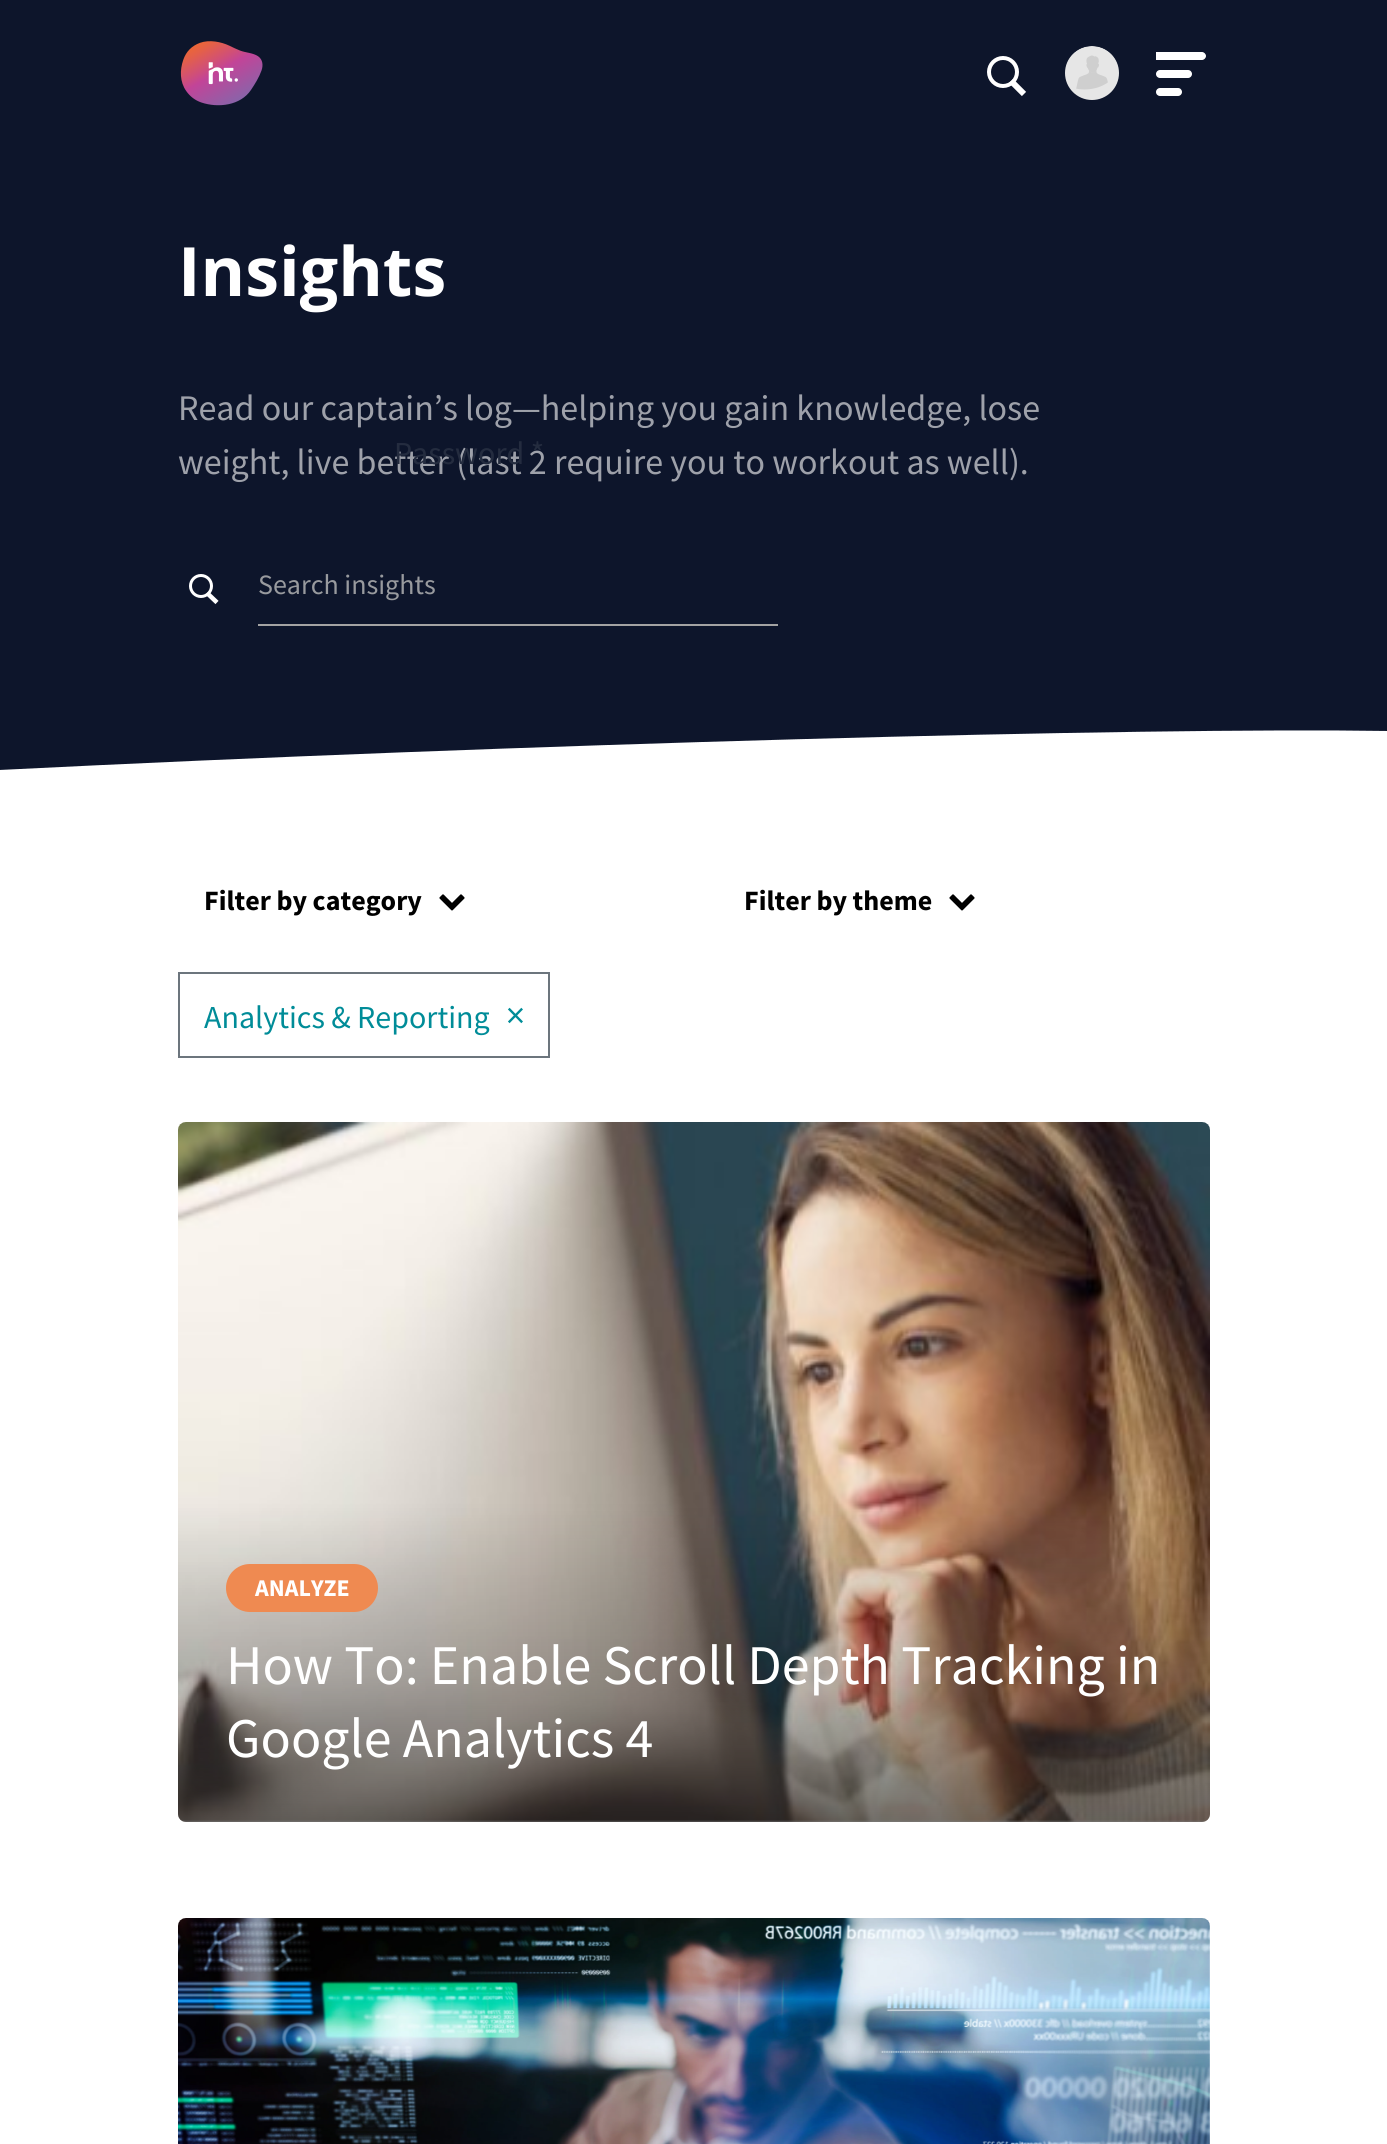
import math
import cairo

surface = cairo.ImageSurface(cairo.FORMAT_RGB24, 1387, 2144)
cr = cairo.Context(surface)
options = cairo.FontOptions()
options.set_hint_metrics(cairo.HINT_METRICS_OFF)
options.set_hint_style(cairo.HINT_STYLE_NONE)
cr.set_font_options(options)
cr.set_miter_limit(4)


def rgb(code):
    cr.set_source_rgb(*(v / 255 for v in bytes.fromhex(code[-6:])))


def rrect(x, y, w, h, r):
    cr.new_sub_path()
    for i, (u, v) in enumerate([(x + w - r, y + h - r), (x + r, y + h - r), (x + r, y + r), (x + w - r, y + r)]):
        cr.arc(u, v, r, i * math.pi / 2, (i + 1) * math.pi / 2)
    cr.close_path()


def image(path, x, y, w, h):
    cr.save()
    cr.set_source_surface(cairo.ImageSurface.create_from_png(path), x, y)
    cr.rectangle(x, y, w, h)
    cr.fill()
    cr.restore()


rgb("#ffffff")
cr.paint()
rgb("#0d152b")
cr.rectangle(0, 0, 1387, 770)
cr.fill()
cr.arc(201, 586, 10.5, 0, 2 * math.pi)
rgb("#ffffff")
cr.set_line_width(3)
cr.stroke()
cr.new_path()
cr.move_to(207, 593)
cr.line_to(217, 602.5)
cr.set_line_width(4.5)
cr.stroke()
rgb("#a3a3a3")
cr.rectangle(258, 624, 520, 2)
cr.fill()
cr.save()
cr.rectangle(0, 730, 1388, 40)
cr.clip()
rgb("#ffffff")
cr.new_path()
cr.move_to(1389, 772)
cr.curve_to(926, 769, 462, 773, -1, 770)
cr.curve_to(519, 744, 1143, 727, 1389, 731)
cr.close_path()
cr.fill()
cr.restore()
image("img/1.png", 180, 41, 83, 65)
cr.arc(1003, 72, 14, 0, 2 * math.pi)
rgb("#ffffff")
cr.set_line_width(4)
cr.stroke()
cr.new_path()
cr.move_to(1011, 81)
cr.line_to(1024, 94)
cr.set_line_width(6)
cr.stroke()
image("img/2.png", 1065, 46, 54, 54)
cr.new_path()
cr.move_to(1156, 52)
cr.line_to(1202, 52)
cr.curve_to(1204, 52, 1206, 54, 1206, 56)
cr.curve_to(1206, 58, 1204, 60, 1202, 60)
cr.line_to(1156, 60)
cr.close_path()
cr.fill()
rrect(1156, 70, 36, 8, 4)
cr.fill()
rrect(1156, 88, 26, 8, 4)
cr.fill()
image("img/3.png", 439, 894, 26, 17)
image("img/3.png", 949, 894, 26, 17)
cr.rectangle(179, 973, 370, 84)
rgb("#6c757d")
cr.set_line_width(2)
cr.stroke()
image("img/4.png", 178, 1122, 1032, 700)
gradient = cairo.LinearGradient(694, 2074, 694, 1122)
gradient.add_color_stop_rgba(0, 0, 0, 0, 1)
gradient.add_color_stop_rgba(0.42, 0, 0, 0, 0.2)
gradient.add_color_stop_rgba(0.6, 0, 0, 0, 0)
gradient.add_color_stop_rgba(1, 0, 0, 0, 0)
cr.set_source(gradient)
rrect(178, 1122, 1032, 700, 8)
cr.fill()
rgb("#ef8a51")
rrect(226, 1564, 152, 48, 24)
cr.fill()
image("img/5.png", 178, 1918, 1032, 226)
cr.select_font_face("Open Sans", cairo.FONT_SLANT_NORMAL, cairo.FONT_WEIGHT_BOLD)
cr.set_font_size(68)
rgb("#ffffff")
cr.move_to(178, 296)
cr.show_text("Insights")
cr.select_font_face("Source Sans Pro")
cr.set_font_size(36)
rgb("#9ea1aa")
cr.move_to(178, 420)
cr.show_text("Read our captain’s log—helping you gain knowledge, lose")
cr.move_to(178, 474)
cr.show_text("weight, live better (last 2 require you to workout as well).")
cr.set_font_size(28)
rgb("#989a9e")
cr.move_to(258, 594)
cr.show_text("Search insights")
cr.set_font_size(32)
rgb("#242c3f")
cr.move_to(394, 464)
cr.show_text("Password *")
cr.select_font_face("Source Sans Pro", cairo.FONT_SLANT_NORMAL, cairo.FONT_WEIGHT_BOLD)
cr.set_font_size(28)
rgb("#000000")
cr.move_to(204, 910)
cr.show_text("Filter by category")
cr.move_to(744, 910)
cr.show_text("Filter by theme")
cr.select_font_face("Source Sans Pro")
cr.set_font_size(32)
rgb("#008c98")
cr.move_to(204, 1028)
cr.show_text("Analytics & Reporting")
cr.set_font_size(38)
cr.move_to(506, 1028)
cr.show_text("×")
cr.select_font_face("Source Sans Pro", cairo.FONT_SLANT_NORMAL, cairo.FONT_WEIGHT_BOLD)
cr.set_font_size(24)
rgb("#ffffff")
cr.move_to(255, 1596)
cr.show_text("ANALYZE")
cr.select_font_face("Source Sans Pro")
cr.set_font_size(56)
cr.move_to(226, 1684)
cr.show_text("How To: Enable Scroll Depth Tracking in")
cr.move_to(226, 1757)
cr.show_text("Google Analytics 4")
surface.write_to_png("page.png")
